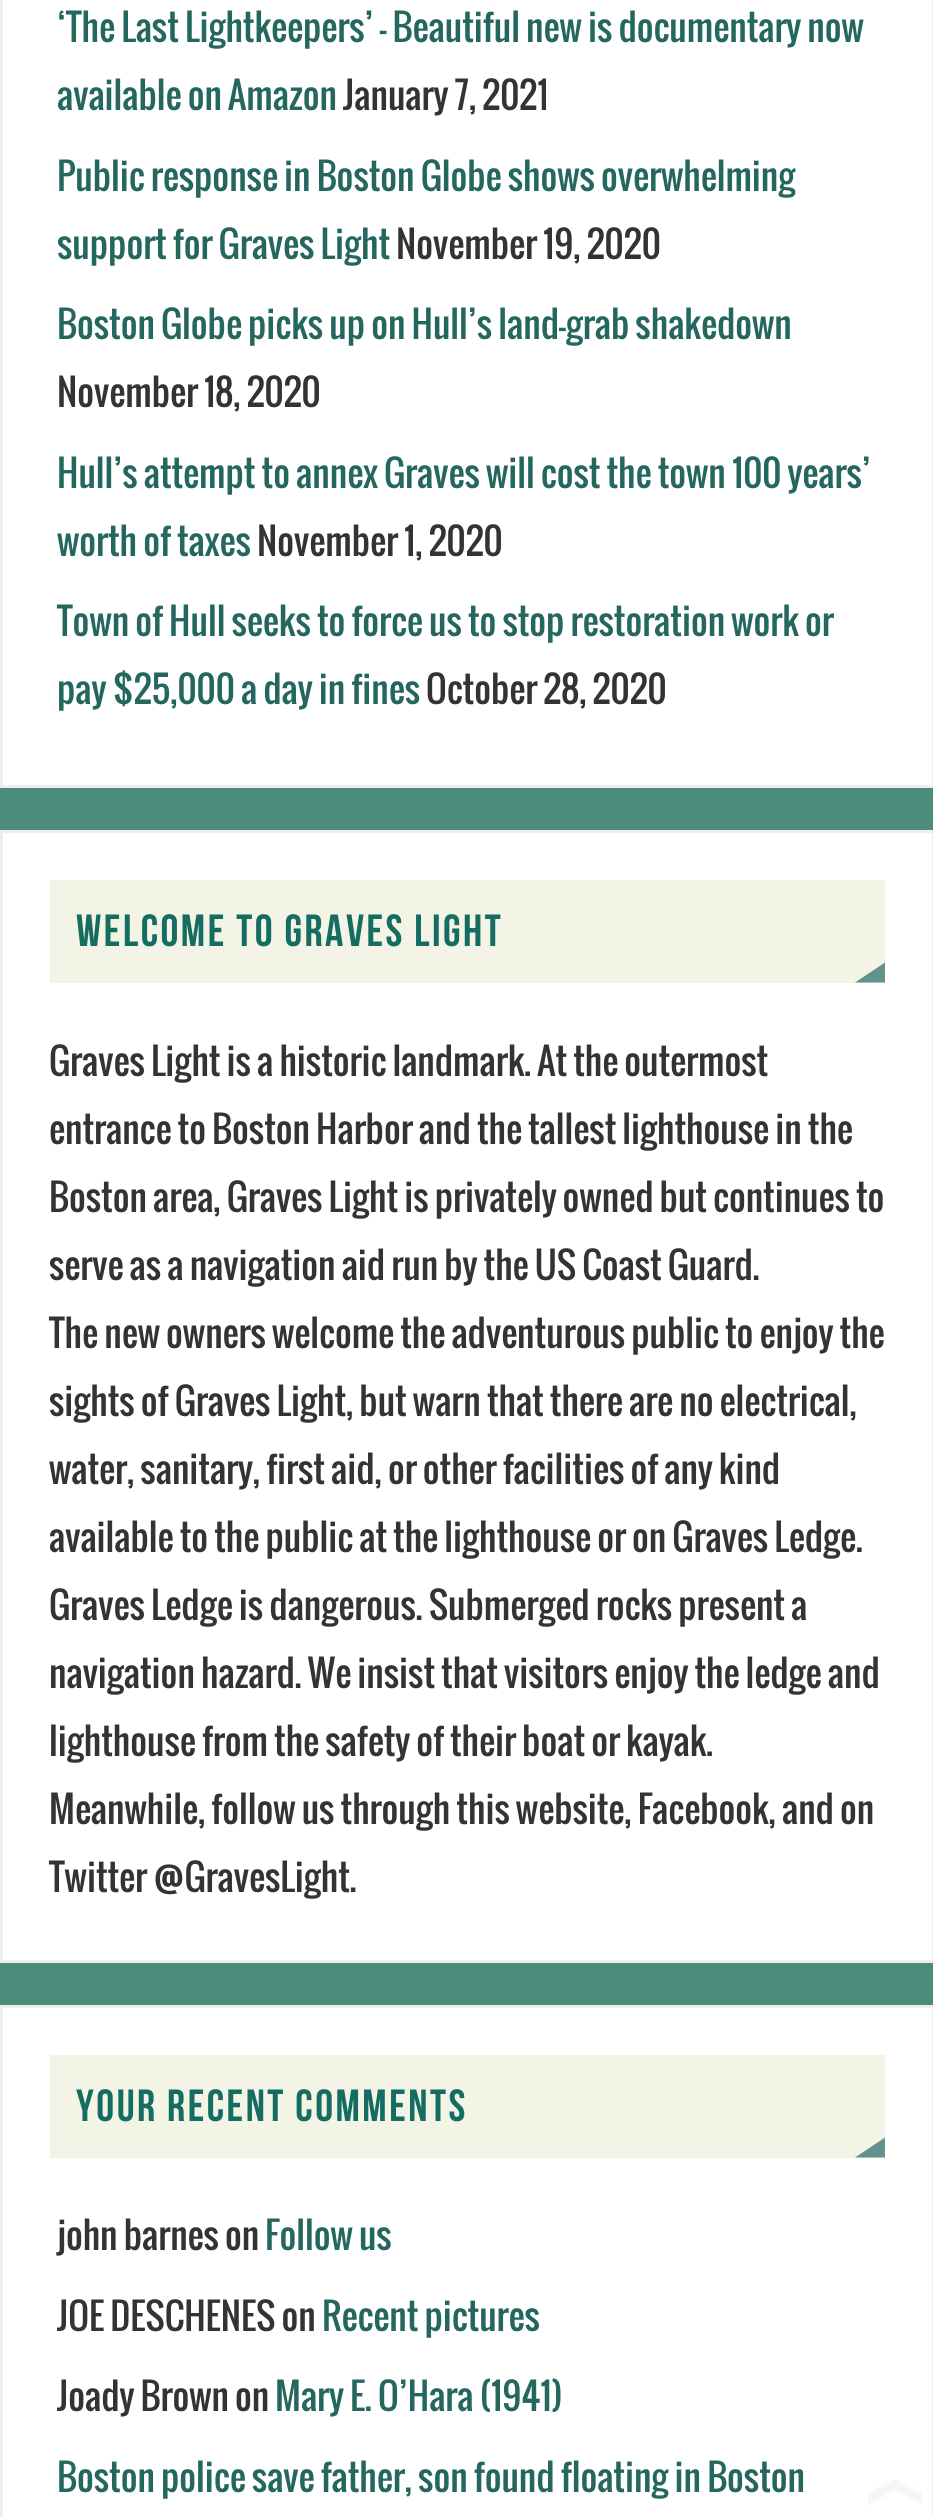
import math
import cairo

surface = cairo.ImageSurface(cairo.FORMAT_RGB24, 933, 2517)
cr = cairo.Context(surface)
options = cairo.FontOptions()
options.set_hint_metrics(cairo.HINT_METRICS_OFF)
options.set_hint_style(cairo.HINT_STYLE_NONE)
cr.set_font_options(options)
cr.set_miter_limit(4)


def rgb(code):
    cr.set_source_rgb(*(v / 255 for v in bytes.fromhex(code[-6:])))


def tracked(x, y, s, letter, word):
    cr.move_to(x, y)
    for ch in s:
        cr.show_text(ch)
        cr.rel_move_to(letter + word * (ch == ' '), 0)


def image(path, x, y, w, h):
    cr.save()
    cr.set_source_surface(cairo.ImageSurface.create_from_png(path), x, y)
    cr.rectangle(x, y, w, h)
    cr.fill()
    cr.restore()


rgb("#4b8c7b")
cr.paint()
rgb("#ffffff")
cr.rectangle(1.5, -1.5, 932, 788)
cr.fill_preserve()
rgb("#eeeeee")
cr.set_line_width(3)
cr.stroke()
rgb("#ffffff")
cr.rectangle(1.5, 831.5, 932, 1130)
cr.fill_preserve()
rgb("#eeeeee")
cr.stroke()
rgb("#f3f4e5")
cr.rectangle(50, 880, 835, 103)
cr.fill()
rgb("#61928c")
cr.new_path()
cr.move_to(885, 982.5)
cr.line_to(855, 982.5)
cr.line_to(885, 962.5)
cr.close_path()
cr.fill()
rgb("#ffffff")
cr.rectangle(1.5, 2006.5, 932, 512)
cr.fill_preserve()
rgb("#eeeeee")
cr.stroke()
rgb("#f3f4e5")
cr.rectangle(50, 2055, 835, 103)
cr.fill()
rgb("#61928c")
cr.new_path()
cr.move_to(885, 2157.5)
cr.line_to(855, 2157.5)
cr.line_to(885, 2137.5)
cr.close_path()
cr.fill()
image("img/1.png", 868, 2480, 54, 25)
cr.select_font_face("Oswald")
cr.set_font_size(36)
rgb("#24675f")
cr.move_to(57, 42)
cr.show_text("‘The Last Lightkeepers’ – Beautiful new is documentary now")
cr.move_to(57, 110)
cr.show_text("available on Amazon")
rgb("#333333")
cr.move_to(343, 110)
cr.show_text("January 7, 2021")
rgb("#24675f")
cr.move_to(57, 191)
cr.show_text("Public response in Boston Globe shows overwhelming")
cr.move_to(57, 259)
cr.show_text("support for Graves Light")
rgb("#333333")
cr.move_to(396, 259)
cr.show_text("November 19, 2020")
rgb("#24675f")
cr.move_to(57, 339)
cr.show_text("Boston Globe picks up on Hull’s land-grab shakedown")
rgb("#333333")
cr.move_to(57, 407)
cr.show_text("November 18, 2020")
rgb("#24675f")
cr.move_to(57, 488)
cr.show_text("Hull’s attempt to annex Graves will cost the town 100 years’")
cr.move_to(57, 556)
cr.show_text("worth of taxes")
rgb("#333333")
cr.move_to(257, 556)
cr.show_text("November 1, 2020")
rgb("#24675f")
cr.move_to(57, 636)
cr.show_text("Town of Hull seeks to force us to stop restoration work or")
cr.move_to(57, 704)
cr.show_text("pay $25,000 a day in fines")
rgb("#333333")
cr.move_to(426, 704)
cr.show_text("October 28, 2020")
cr.select_font_face("Bebas Neue")
cr.set_font_size(45)
rgb("#156d62")
tracked(76, 946, "WELCOME TO GRAVES LIGHT", 2.5, 0)
cr.select_font_face("Oswald")
cr.set_font_size(36)
rgb("#333333")
for x, y, s in [
    (49, 1076, "Graves Light is a historic landmark. At the outermost"),
    (49, 1144, "entrance to Boston Harbor and the tallest lighthouse in the"),
    (49, 1212, "Boston area, Graves Light is privately owned but continues to"),
    (49, 1280, "serve as a navigation aid run by the US Coast Guard."),
    (49, 1348, "The new owners welcome the adventurous public to enjoy the"),
    (49, 1416, "sights of Graves Light, but warn that there are no electrical,"),
    (49, 1484, "water, sanitary, first aid, or other facilities of any kind"),
    (49, 1552, "available to the public at the lighthouse or on Graves Ledge."),
    (49, 1620, "Graves Ledge is dangerous. Submerged rocks present a"),
    (49, 1688, "navigation hazard. We insist that visitors enjoy the ledge and"),
    (49, 1756, "lighthouse from the safety of their boat or kayak."),
    (49, 1824, "Meanwhile, follow us through this website, Facebook, and on"),
    (49, 1892, "Twitter @GravesLight."),
]:
    cr.move_to(x, y)
    cr.show_text(s)
cr.select_font_face("Bebas Neue")
cr.set_font_size(45)
rgb("#156d62")
tracked(76, 2121, "YOUR RECENT COMMENTS", 2.5, 0)
cr.select_font_face("Oswald")
cr.set_font_size(36)
rgb("#333333")
cr.move_to(57, 2250)
cr.show_text("john barnes on")
rgb("#24675f")
cr.move_to(265, 2250)
cr.show_text("Follow us")
rgb("#333333")
cr.move_to(57, 2331)
cr.show_text("JOE DESCHENES on")
rgb("#24675f")
cr.move_to(322, 2331)
cr.show_text("Recent pictures")
rgb("#333333")
cr.move_to(57, 2411)
cr.show_text("Joady Brown on")
rgb("#24675f")
cr.move_to(275, 2411)
cr.show_text("Mary E. O’Hara (1941)")
cr.move_to(57, 2492)
cr.show_text("Boston police save father, son found floating in Boston")
surface.write_to_png("page.png")
